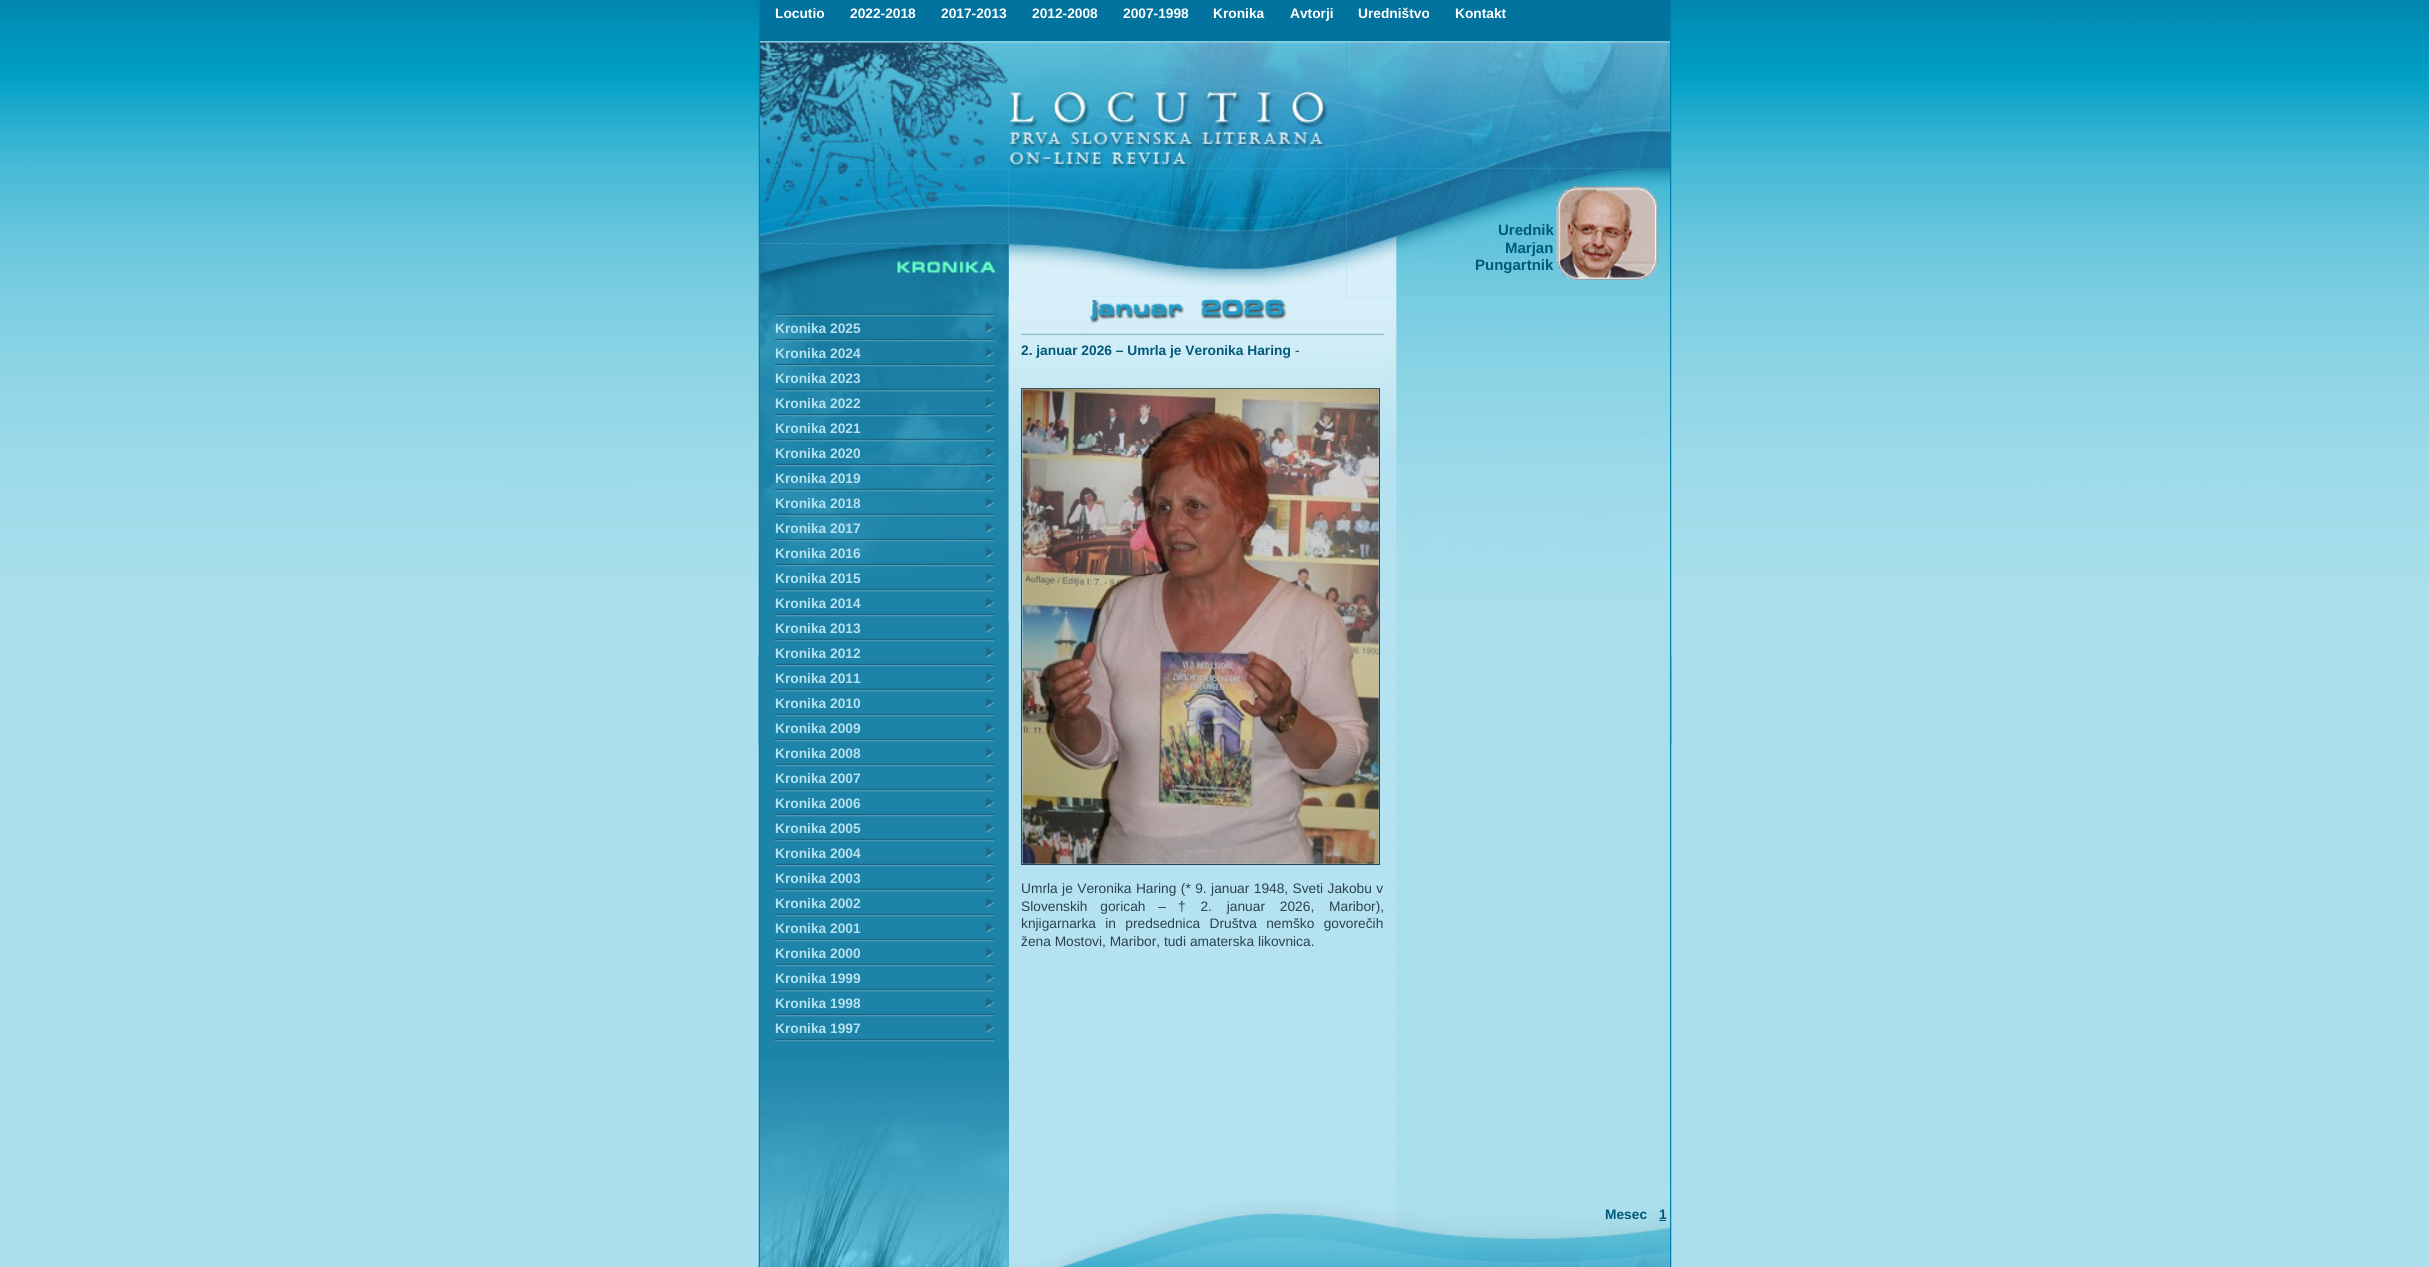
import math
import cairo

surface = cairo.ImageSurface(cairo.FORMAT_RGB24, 2429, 1267)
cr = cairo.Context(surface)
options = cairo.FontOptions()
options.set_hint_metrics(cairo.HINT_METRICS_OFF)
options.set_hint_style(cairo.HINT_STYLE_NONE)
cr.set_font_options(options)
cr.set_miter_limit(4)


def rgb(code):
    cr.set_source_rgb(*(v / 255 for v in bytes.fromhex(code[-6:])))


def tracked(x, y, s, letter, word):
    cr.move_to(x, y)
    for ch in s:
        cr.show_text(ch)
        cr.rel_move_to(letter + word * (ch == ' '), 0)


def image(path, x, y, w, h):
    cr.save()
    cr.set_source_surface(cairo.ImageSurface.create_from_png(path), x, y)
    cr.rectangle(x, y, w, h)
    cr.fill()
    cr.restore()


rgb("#abdfed")
cr.paint()
image("img/1.png", 0, 0, 2429, 582)
image("img/2.png", 758, 0, 2, 1267)
image("img/3.png", 758, 656, 1, 89)
rgb("#02739f")
cr.rectangle(760, 0, 910, 42)
cr.fill()
image("img/9.png", 1346, 168, 324, 129)
image("img/4.png", 760, 41, 587, 128)
image("img/5.png", 1346, 41, 324, 128)
image("img/7.png", 760, 168, 249, 76)
rgb("#1d83a9")
cr.rectangle(760, 296, 249, 971)
cr.fill()
image("img/11.png", 760, 296, 249, 280)
image("img/36.png", 1008, 296, 662, 971)
image("img/37.png", 1008, 296, 662, 326)
image("img/8.png", 1008, 168, 339, 129)
image("img/6.png", 760, 243, 249, 54)
image("img/10.png", 1556, 186, 102, 95)
image("img/12.png", 775, 313, 219, 4)
image("img/13.png", 985, 322, 9, 11)
image("img/14.png", 775, 338, 219, 4)
image("img/15.png", 985, 347, 9, 11)
image("img/16.png", 775, 363, 219, 4)
image("img/17.png", 985, 372, 9, 11)
image("img/18.png", 775, 388, 219, 4)
image("img/19.png", 985, 397, 9, 11)
image("img/20.png", 775, 413, 219, 4)
image("img/21.png", 985, 422, 9, 11)
image("img/22.png", 775, 438, 219, 4)
image("img/23.png", 985, 447, 9, 11)
image("img/24.png", 775, 463, 219, 4)
image("img/25.png", 985, 472, 9, 11)
image("img/26.png", 775, 488, 219, 4)
image("img/27.png", 985, 497, 9, 11)
image("img/28.png", 775, 513, 219, 4)
image("img/29.png", 985, 522, 9, 11)
image("img/30.png", 775, 538, 219, 4)
image("img/31.png", 985, 547, 9, 11)
image("img/32.png", 775, 563, 219, 4)
image("img/33.png", 985, 572, 9, 11)
image("img/34.png", 775, 588, 219, 4)
image("img/33.png", 985, 597, 9, 11)
image("img/34.png", 775, 613, 219, 4)
image("img/33.png", 985, 622, 9, 11)
image("img/34.png", 775, 638, 219, 4)
image("img/33.png", 985, 647, 9, 11)
image("img/34.png", 775, 663, 219, 4)
image("img/33.png", 985, 672, 9, 11)
image("img/34.png", 775, 688, 219, 4)
image("img/33.png", 985, 697, 9, 11)
image("img/34.png", 775, 713, 219, 4)
image("img/33.png", 985, 722, 9, 11)
image("img/34.png", 775, 738, 219, 4)
image("img/33.png", 985, 747, 9, 11)
image("img/34.png", 775, 763, 219, 4)
image("img/33.png", 985, 772, 9, 11)
image("img/34.png", 775, 788, 219, 4)
image("img/33.png", 985, 797, 9, 11)
image("img/34.png", 775, 813, 219, 4)
image("img/33.png", 985, 822, 9, 11)
image("img/34.png", 775, 838, 219, 4)
image("img/33.png", 985, 847, 9, 11)
image("img/34.png", 775, 863, 219, 4)
image("img/33.png", 985, 872, 9, 11)
image("img/34.png", 775, 888, 219, 4)
image("img/33.png", 985, 897, 9, 11)
image("img/34.png", 775, 913, 219, 4)
image("img/33.png", 985, 922, 9, 11)
image("img/34.png", 775, 938, 219, 4)
image("img/33.png", 985, 947, 9, 11)
image("img/34.png", 775, 963, 219, 4)
image("img/33.png", 985, 972, 9, 11)
image("img/34.png", 775, 988, 219, 4)
image("img/33.png", 985, 997, 9, 11)
image("img/34.png", 775, 1013, 219, 4)
image("img/33.png", 985, 1022, 9, 11)
image("img/34.png", 775, 1038, 219, 4)
image("img/42.png", 1008, 1187, 662, 80)
image("img/35.png", 760, 1058, 249, 209)
image("img/38.png", 1089, 299, 95, 25)
image("img/39.png", 1201, 298, 86, 22)
image("img/40.png", 1021, 333, 363, 4)
cr.rectangle(1021.5, 388.5, 358, 476)
rgb("#2a434d")
cr.set_line_width(1)
cr.stroke()
image("img/41.png", 1022, 388, 357, 476)
rgb("#015879")
cr.rectangle(1659, 1220, 7, 1)
cr.fill()
image("img/43.png", 1670, 0, 2, 1267)
image("img/3.png", 1671, 656, 1, 89)
cr.select_font_face("Liberation Sans", cairo.FONT_SLANT_NORMAL, cairo.FONT_WEIGHT_BOLD)
cr.set_font_size(13.75)
rgb("#ffffff")
for x, y, s in [
    (775, 18, "Locutio"),
    (850, 18, "2022-2018"),
    (941, 18, "2017-2013"),
    (1032, 18, "2012-2008"),
    (1123, 18, "2007-1998"),
    (1213, 18, "Kronika"),
    (1290, 18, "Avtorji"),
    (1358, 18, "Uredništvo"),
    (1455, 18, "Kontakt"),
]:
    cr.move_to(x, y)
    cr.show_text(s)
cr.set_font_size(15)
rgb("#015879")
for x, y, s in [
    (1498, 235, "Urednik"),
    (1505, 253, "Marjan"),
    (1475, 270, "Pungartnik"),
]:
    cr.move_to(x, y)
    cr.show_text(s)
cr.set_font_size(13.75)
rgb("#b4e2f0")
for x, y, s in [
    (775, 333, "Kronika 2025"),
    (775, 358, "Kronika 2024"),
    (775, 383, "Kronika 2023"),
    (775, 408, "Kronika 2022"),
    (775, 433, "Kronika 2021"),
    (775, 458, "Kronika 2020"),
    (775, 483, "Kronika 2019"),
    (775, 508, "Kronika 2018"),
    (775, 533, "Kronika 2017"),
    (775, 558, "Kronika 2016"),
    (775, 583, "Kronika 2015"),
    (775, 608, "Kronika 2014"),
    (775, 633, "Kronika 2013"),
    (775, 658, "Kronika 2012"),
    (775, 683, "Kronika 2011"),
    (775, 708, "Kronika 2010"),
    (775, 733, "Kronika 2009"),
    (775, 758, "Kronika 2008"),
    (775, 783, "Kronika 2007"),
    (775, 808, "Kronika 2006"),
    (775, 833, "Kronika 2005"),
    (775, 858, "Kronika 2004"),
    (775, 883, "Kronika 2003"),
    (775, 908, "Kronika 2002"),
    (775, 933, "Kronika 2001"),
    (775, 958, "Kronika 2000"),
    (775, 983, "Kronika 1999"),
    (775, 1008, "Kronika 1998"),
    (775, 1033, "Kronika 1997"),
]:
    cr.move_to(x, y)
    cr.show_text(s)
rgb("#015879")
cr.move_to(1021, 355)
cr.show_text("2. januar 2026 – Umrla je Veronika Haring")
cr.select_font_face("Liberation Sans")
rgb("#2a434d")
cr.move_to(1295, 355)
cr.show_text("-")
tracked(1021, 893, "Umrla je Veronika Haring (* 9. januar 1948, Sveti Jakobu v", 0, 0.6)
tracked(1021, 911, "Slovenskih goricah –", 0, 9)
tracked(1178, 911, "† 2. januar 2026, Maribor),", 0, 11)
tracked(1021, 928, "knjigarnarka in predsednica Društva nemško govorečih", 0, 5.5)
cr.move_to(1021, 946)
cr.show_text("žena Mostovi, Maribor, tudi amaterska likovnica.")
cr.select_font_face("Liberation Sans", cairo.FONT_SLANT_NORMAL, cairo.FONT_WEIGHT_BOLD)
rgb("#015879")
cr.move_to(1605, 1219)
cr.show_text("Mesec")
cr.move_to(1659, 1219)
cr.show_text("1")
surface.write_to_png("page.png")
